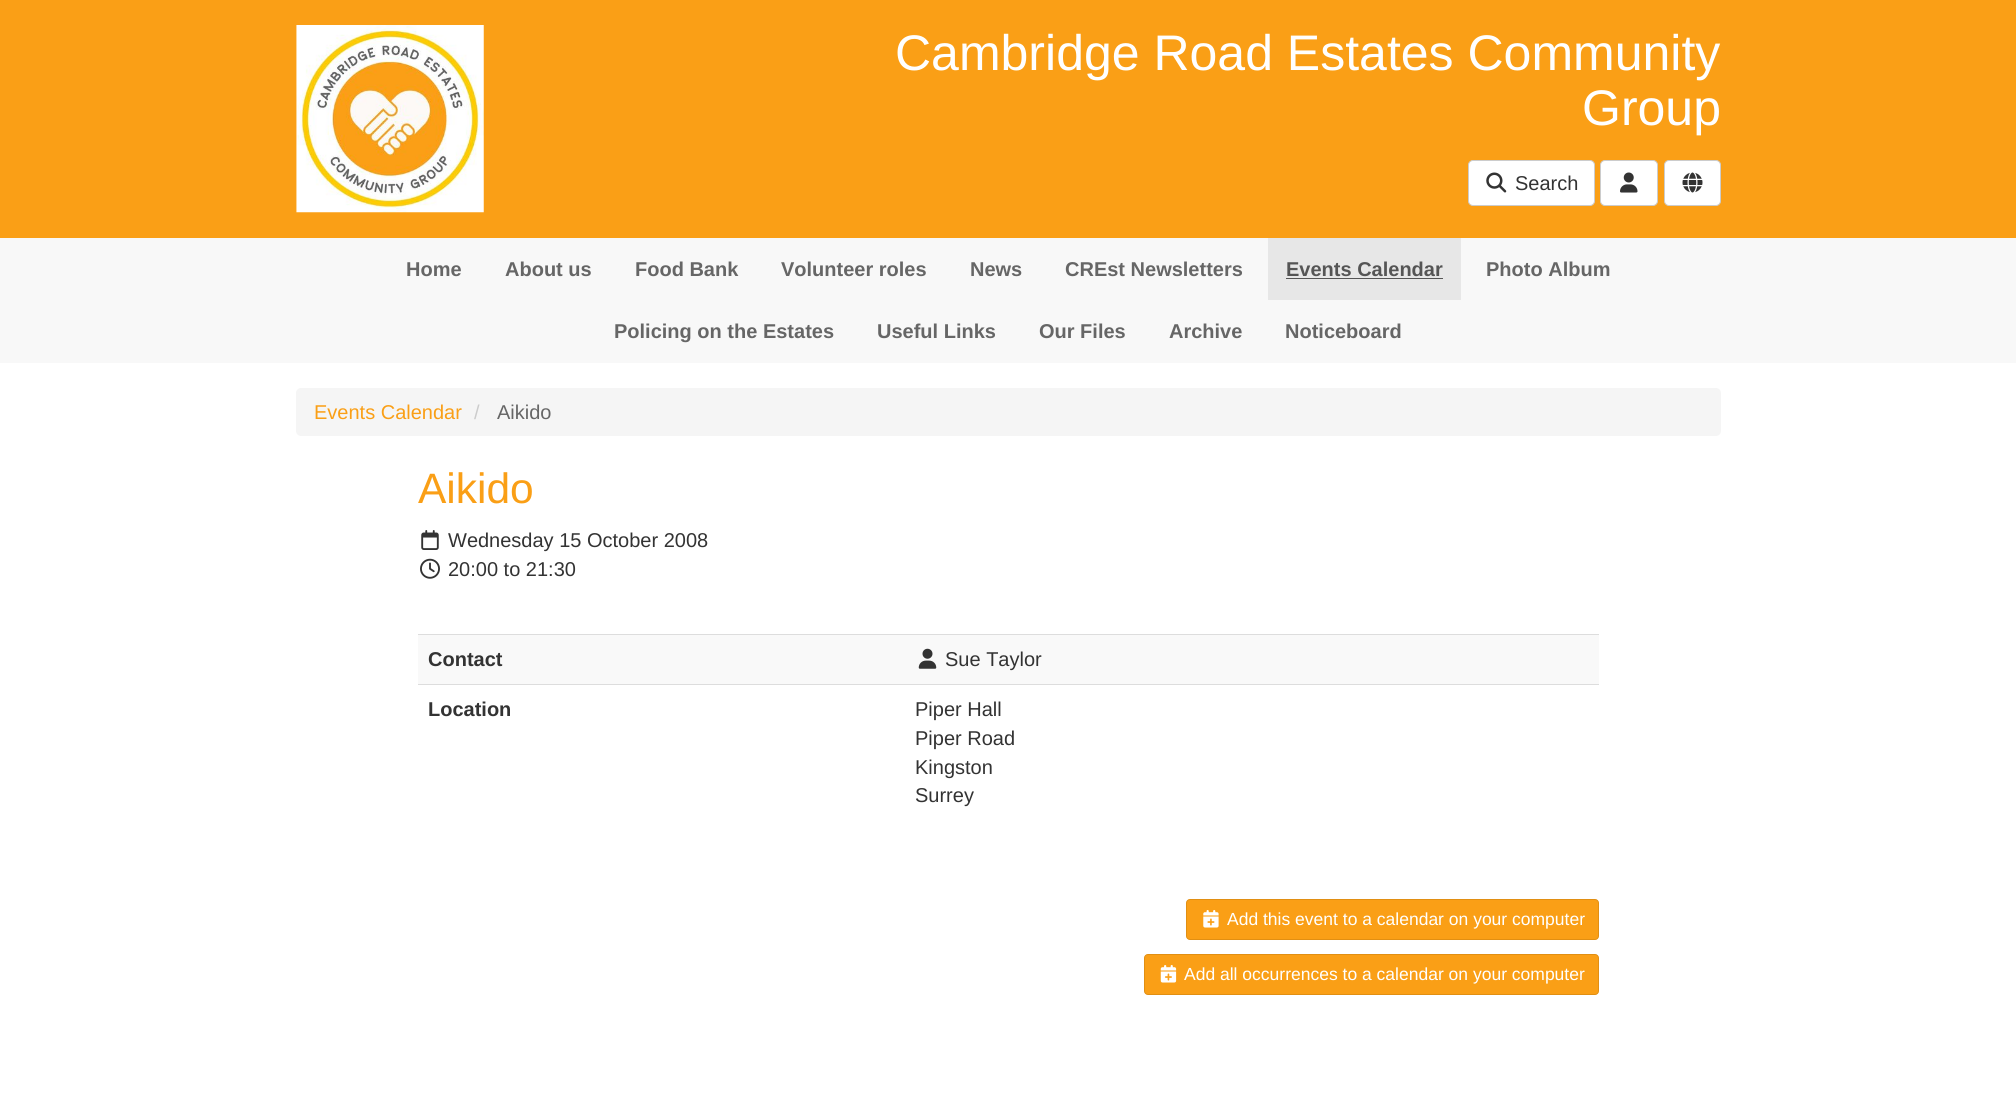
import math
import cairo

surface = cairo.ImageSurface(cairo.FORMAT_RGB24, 2016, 1098)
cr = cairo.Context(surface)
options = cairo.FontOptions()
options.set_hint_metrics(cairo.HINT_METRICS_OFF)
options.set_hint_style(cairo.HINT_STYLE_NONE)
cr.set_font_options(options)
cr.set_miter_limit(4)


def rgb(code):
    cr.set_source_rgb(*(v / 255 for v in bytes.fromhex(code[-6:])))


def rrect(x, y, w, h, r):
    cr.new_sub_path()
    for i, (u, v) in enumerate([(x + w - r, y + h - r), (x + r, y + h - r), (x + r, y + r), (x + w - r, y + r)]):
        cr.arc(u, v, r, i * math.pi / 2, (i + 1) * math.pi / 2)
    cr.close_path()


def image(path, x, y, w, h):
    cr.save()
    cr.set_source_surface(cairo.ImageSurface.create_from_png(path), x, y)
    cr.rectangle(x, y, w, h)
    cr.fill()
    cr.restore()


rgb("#ffffff")
cr.paint()
rgb("#fa9f16")
cr.rectangle(0, 0, 2016, 238)
cr.fill()
image("img/1.png", 296, 25, 188, 188)
rgb("#ffffff")
rrect(1468.5, 160.5, 126, 45, 4.5)
cr.fill_preserve()
rgb("#cccccc")
cr.set_line_width(1)
cr.stroke()
image("img/2.png", 1486, 172, 21, 21)
rgb("#ffffff")
rrect(1600.5, 160.5, 57, 45, 4.5)
cr.fill_preserve()
rgb("#cccccc")
cr.stroke()
image("img/3.png", 1620, 172, 18, 21)
rgb("#ffffff")
rrect(1664.5, 160.5, 56, 45, 4.5)
cr.fill_preserve()
rgb("#cccccc")
cr.stroke()
image("img/4.png", 1682, 172, 21, 21)
for x, y, w, h, color in [
    (0, 238, 2016, 125, "#f8f8f8"),
    (1268, 238, 193, 62, "#e7e7e7"),
    (1286, 278, 157, 1, "#555555"),
]:
    rgb(color)
    cr.rectangle(x, y, w, h)
    cr.fill()
rgb("#f5f5f5")
rrect(296, 388, 1425, 48, 5)
cr.fill()
image("img/5.png", 421, 530, 18, 20)
image("img/6.png", 420, 558, 20, 21)
rgb("#f9f9f9")
cr.rectangle(418, 635, 1181, 49)
cr.fill()
rgb("#dddddd")
cr.rectangle(418, 634, 1181, 1)
cr.fill()
image("img/7.png", 918, 648, 19, 21)
cr.rectangle(418, 684, 1181, 1)
cr.fill()
rgb("#fa9f16")
rrect(1186.5, 899.5, 412, 40, 3.5)
cr.fill_preserve()
rgb("#e18f13")
cr.stroke()
image("img/8.png", 1203, 910, 16, 18)
rgb("#fa9f16")
rrect(1144.5, 954.5, 454, 40, 3.5)
cr.fill_preserve()
rgb("#e18f13")
cr.stroke()
image("img/9.png", 1160, 965, 17, 18)
cr.select_font_face("Liberation Sans")
cr.set_font_size(50)
rgb("#ffffff")
cr.move_to(895, 70)
cr.show_text("Cambridge Road Estates Community")
cr.move_to(1582, 125)
cr.show_text("Group")
cr.set_font_size(20)
rgb("#333333")
cr.move_to(1515, 190)
cr.show_text("Search")
cr.select_font_face("Liberation Sans", cairo.FONT_SLANT_NORMAL, cairo.FONT_WEIGHT_BOLD)
rgb("#666666")
for x, y, s in [
    (406, 276, "Home"),
    (505, 276, "About us"),
    (635, 276, "Food Bank"),
    (781, 276, "Volunteer roles"),
    (970, 276, "News"),
    (1065, 276, "CREst Newsletters"),
]:
    cr.move_to(x, y)
    cr.show_text(s)
rgb("#555555")
cr.move_to(1286, 276)
cr.show_text("Events Calendar")
rgb("#666666")
for x, y, s in [
    (1486, 276, "Photo Album"),
    (614, 338, "Policing on the Estates"),
    (877, 338, "Useful Links"),
    (1039, 338, "Our Files"),
    (1169, 338, "Archive"),
    (1285, 338, "Noticeboard"),
]:
    cr.move_to(x, y)
    cr.show_text(s)
cr.select_font_face("Liberation Sans")
rgb("#fa9f16")
cr.move_to(314, 419)
cr.show_text("Events Calendar")
rgb("#cccccc")
cr.move_to(474, 419)
cr.show_text("/")
rgb("#666666")
cr.move_to(497, 419)
cr.show_text("Aikido")
cr.set_font_size(42.5)
rgb("#fa9f16")
cr.move_to(418, 503)
cr.show_text("Aikido")
cr.set_font_size(20)
rgb("#333333")
cr.move_to(448, 547)
cr.show_text("Wednesday 15 October 2008")
cr.move_to(448, 576)
cr.show_text("20:00 to 21:30")
cr.select_font_face("Liberation Sans", cairo.FONT_SLANT_NORMAL, cairo.FONT_WEIGHT_BOLD)
cr.move_to(428, 666)
cr.show_text("Contact")
cr.select_font_face("Liberation Sans")
cr.move_to(945, 666)
cr.show_text("Sue Taylor")
cr.select_font_face("Liberation Sans", cairo.FONT_SLANT_NORMAL, cairo.FONT_WEIGHT_BOLD)
cr.move_to(428, 716)
cr.show_text("Location")
cr.select_font_face("Liberation Sans")
for x, y, s in [
    (915, 716, "Piper Hall"),
    (915, 745, "Piper Road"),
    (915, 774, "Kingston"),
    (915, 802, "Surrey"),
]:
    cr.move_to(x, y)
    cr.show_text(s)
cr.set_font_size(17.5)
rgb("#ffffff")
cr.move_to(1227, 925)
cr.show_text("Add this event to a calendar on your computer")
cr.move_to(1184, 980)
cr.show_text("Add all occurrences to a calendar on your computer")
surface.write_to_png("page.png")
